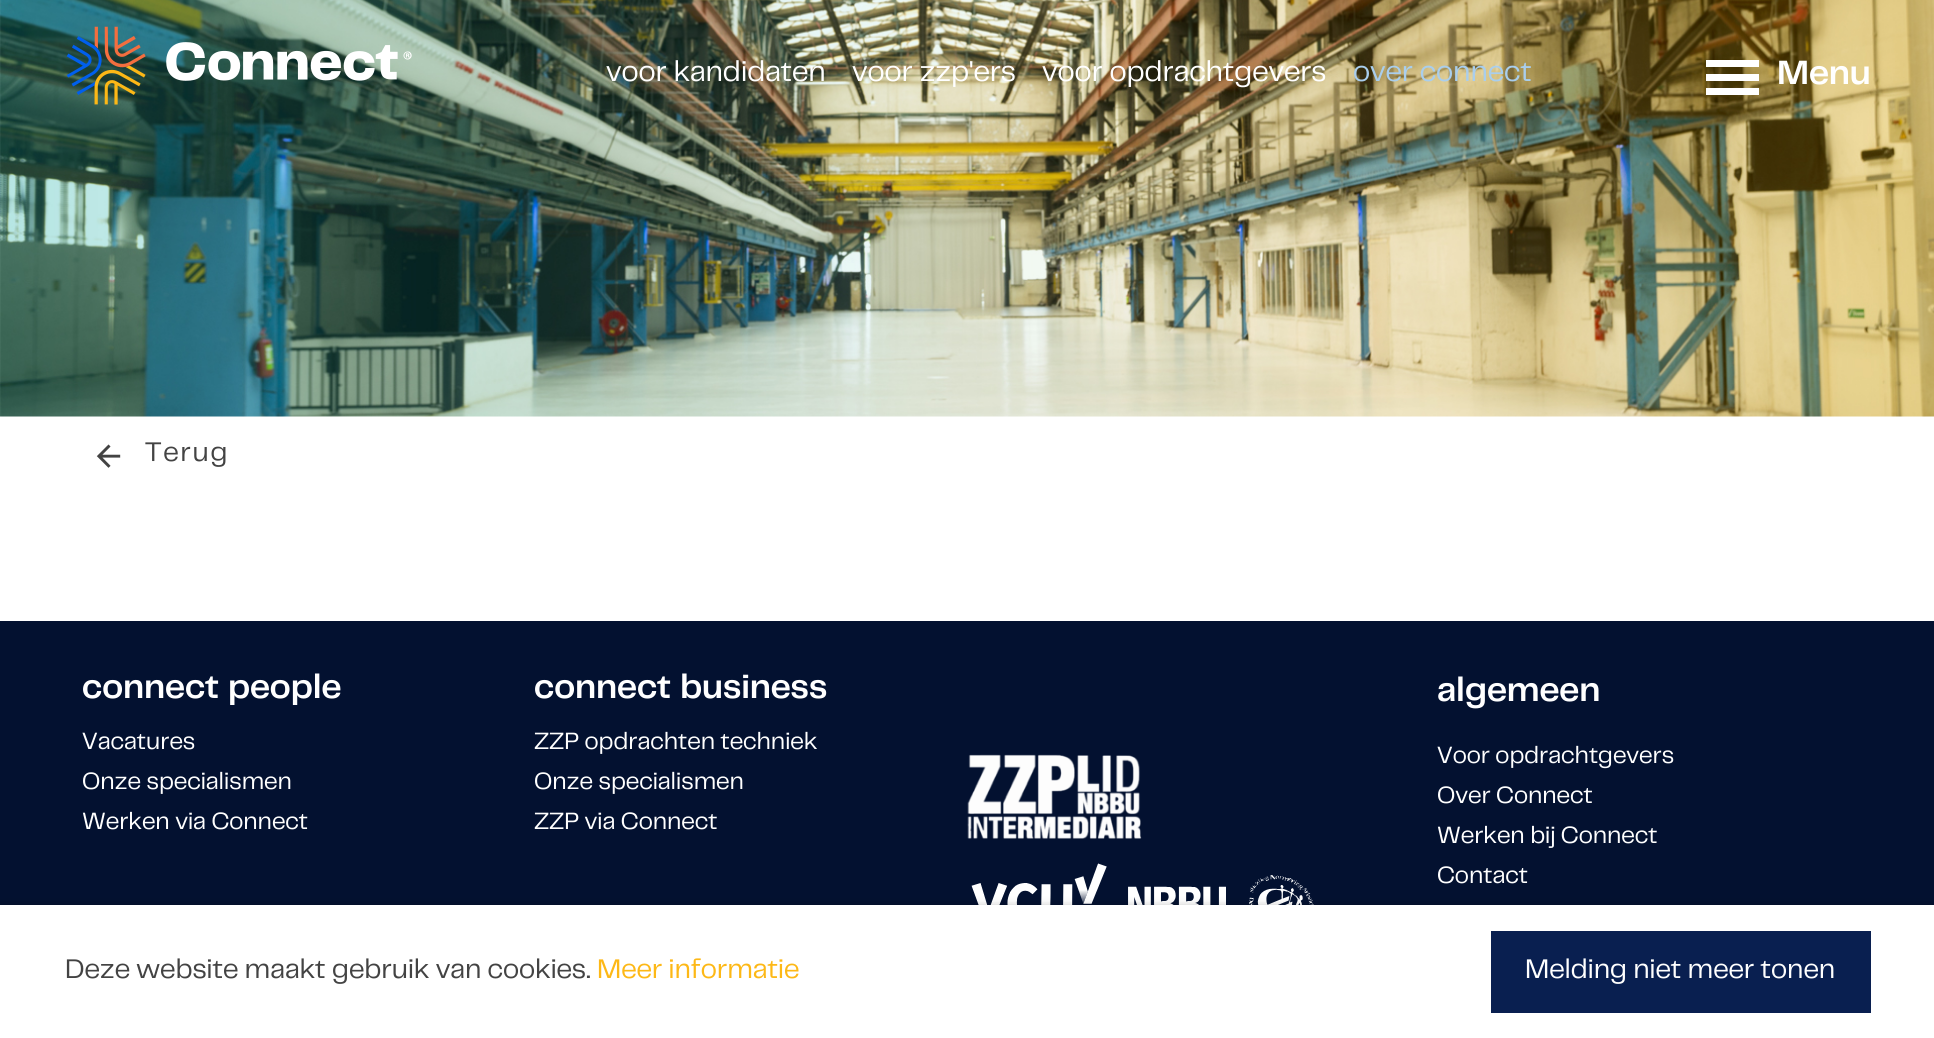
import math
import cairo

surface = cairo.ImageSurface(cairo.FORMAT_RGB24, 1934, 1038)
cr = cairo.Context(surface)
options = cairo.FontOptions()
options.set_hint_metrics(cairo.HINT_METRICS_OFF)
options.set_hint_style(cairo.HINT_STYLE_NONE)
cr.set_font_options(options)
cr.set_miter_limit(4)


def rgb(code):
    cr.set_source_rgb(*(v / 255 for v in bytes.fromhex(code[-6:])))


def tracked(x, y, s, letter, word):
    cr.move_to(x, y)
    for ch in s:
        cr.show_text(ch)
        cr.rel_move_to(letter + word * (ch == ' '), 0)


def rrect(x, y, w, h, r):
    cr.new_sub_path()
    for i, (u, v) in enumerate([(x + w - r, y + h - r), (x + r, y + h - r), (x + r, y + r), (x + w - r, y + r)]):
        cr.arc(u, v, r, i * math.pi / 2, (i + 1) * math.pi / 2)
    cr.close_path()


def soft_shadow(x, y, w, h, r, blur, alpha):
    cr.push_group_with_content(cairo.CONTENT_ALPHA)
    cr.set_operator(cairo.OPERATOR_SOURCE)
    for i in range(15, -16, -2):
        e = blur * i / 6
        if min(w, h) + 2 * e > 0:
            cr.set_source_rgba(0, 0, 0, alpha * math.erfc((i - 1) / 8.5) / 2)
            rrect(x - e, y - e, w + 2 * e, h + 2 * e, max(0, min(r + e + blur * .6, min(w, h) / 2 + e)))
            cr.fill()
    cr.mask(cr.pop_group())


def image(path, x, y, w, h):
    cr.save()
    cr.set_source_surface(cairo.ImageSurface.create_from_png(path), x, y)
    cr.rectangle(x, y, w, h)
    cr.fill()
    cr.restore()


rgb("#ffffff")
cr.paint()
image("img/2.png", 0, 0, 1934, 417)
image("img/1.png", 66, 26, 346, 79)
for x, y, w, h, color in [
    (1706, 74, 53, 7, "#ffffff"),
    (1706, 60, 53, 7, "#ffffff"),
    (1706, 88, 53, 7, "#ffffff"),
]:
    rgb(color)
    cr.rectangle(x, y, w, h)
    cr.fill()
image("img/3.png", 96, 444, 25, 24)
rgb("#031130")
cr.rectangle(0, 621, 1934, 284)
cr.fill()
image("img/4.png", 967, 754, 175, 85)
image("img/5.png", 971, 863, 343, 42)
rgb("#000000")
soft_shadow(0, 908, 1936, 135, 0, 5, 0.4)
rgb("#ffffff")
cr.rectangle(0, 905, 1934, 133)
cr.fill()
rgb("#091f50")
cr.rectangle(1491, 931, 380, 82)
cr.fill()
cr.select_font_face("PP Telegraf")
cr.set_font_size(29.75)
rgb("#ffffff")
for x, y, s in [
    (606, 81, "voor kandidaten"),
    (852, 81, "voor zzp'ers"),
    (1042, 81, "voor opdrachtgevers"),
]:
    cr.move_to(x, y)
    cr.show_text(s)
rgb("#a9ceed")
cr.move_to(1353, 81)
cr.show_text("over connect")
cr.select_font_face("PP Telegraf SemiBold")
cr.set_font_size(35)
rgb("#ffffff")
cr.move_to(1777, 84)
cr.show_text("Menu")
cr.select_font_face("PP Telegraf")
cr.set_font_size(28)
rgb("#434343")
tracked(145, 461, "Terug", 1.75, 0)
cr.select_font_face("PP Telegraf SemiBold")
cr.set_font_size(35)
rgb("#ffffff")
cr.move_to(82, 698)
cr.show_text("connect people")
cr.select_font_face("PP Telegraf")
cr.set_font_size(24.5)
for x, y, s in [
    (82, 749, "Vacatures"),
    (82, 789, "Onze specialismen"),
    (82, 829, "Werken via Connect"),
]:
    cr.move_to(x, y)
    cr.show_text(s)
cr.select_font_face("PP Telegraf SemiBold")
cr.set_font_size(35)
cr.move_to(534, 698)
cr.show_text("connect business")
cr.select_font_face("PP Telegraf")
cr.set_font_size(24.5)
for x, y, s in [
    (534, 749, "ZZP opdrachten techniek"),
    (534, 789, "Onze specialismen"),
    (534, 829, "ZZP via Connect"),
]:
    cr.move_to(x, y)
    cr.show_text(s)
cr.select_font_face("PP Telegraf SemiBold")
cr.set_font_size(35)
cr.move_to(1437, 701)
cr.show_text("algemeen")
cr.select_font_face("PP Telegraf")
cr.set_font_size(24.5)
for x, y, s in [
    (1437, 763, "Voor opdrachtgevers"),
    (1437, 803, "Over Connect"),
    (1437, 843, "Werken bij Connect"),
    (1437, 883, "Contact"),
]:
    cr.move_to(x, y)
    cr.show_text(s)
cr.set_font_size(28)
rgb("#434343")
cr.move_to(65, 978)
cr.show_text("Deze website maakt gebruik van cookies.")
rgb("#fdb816")
cr.move_to(597, 978)
cr.show_text("Meer informatie")
rgb("#ffffff")
cr.move_to(1525, 978)
cr.show_text("Melding niet meer tonen")
surface.write_to_png("page.png")
